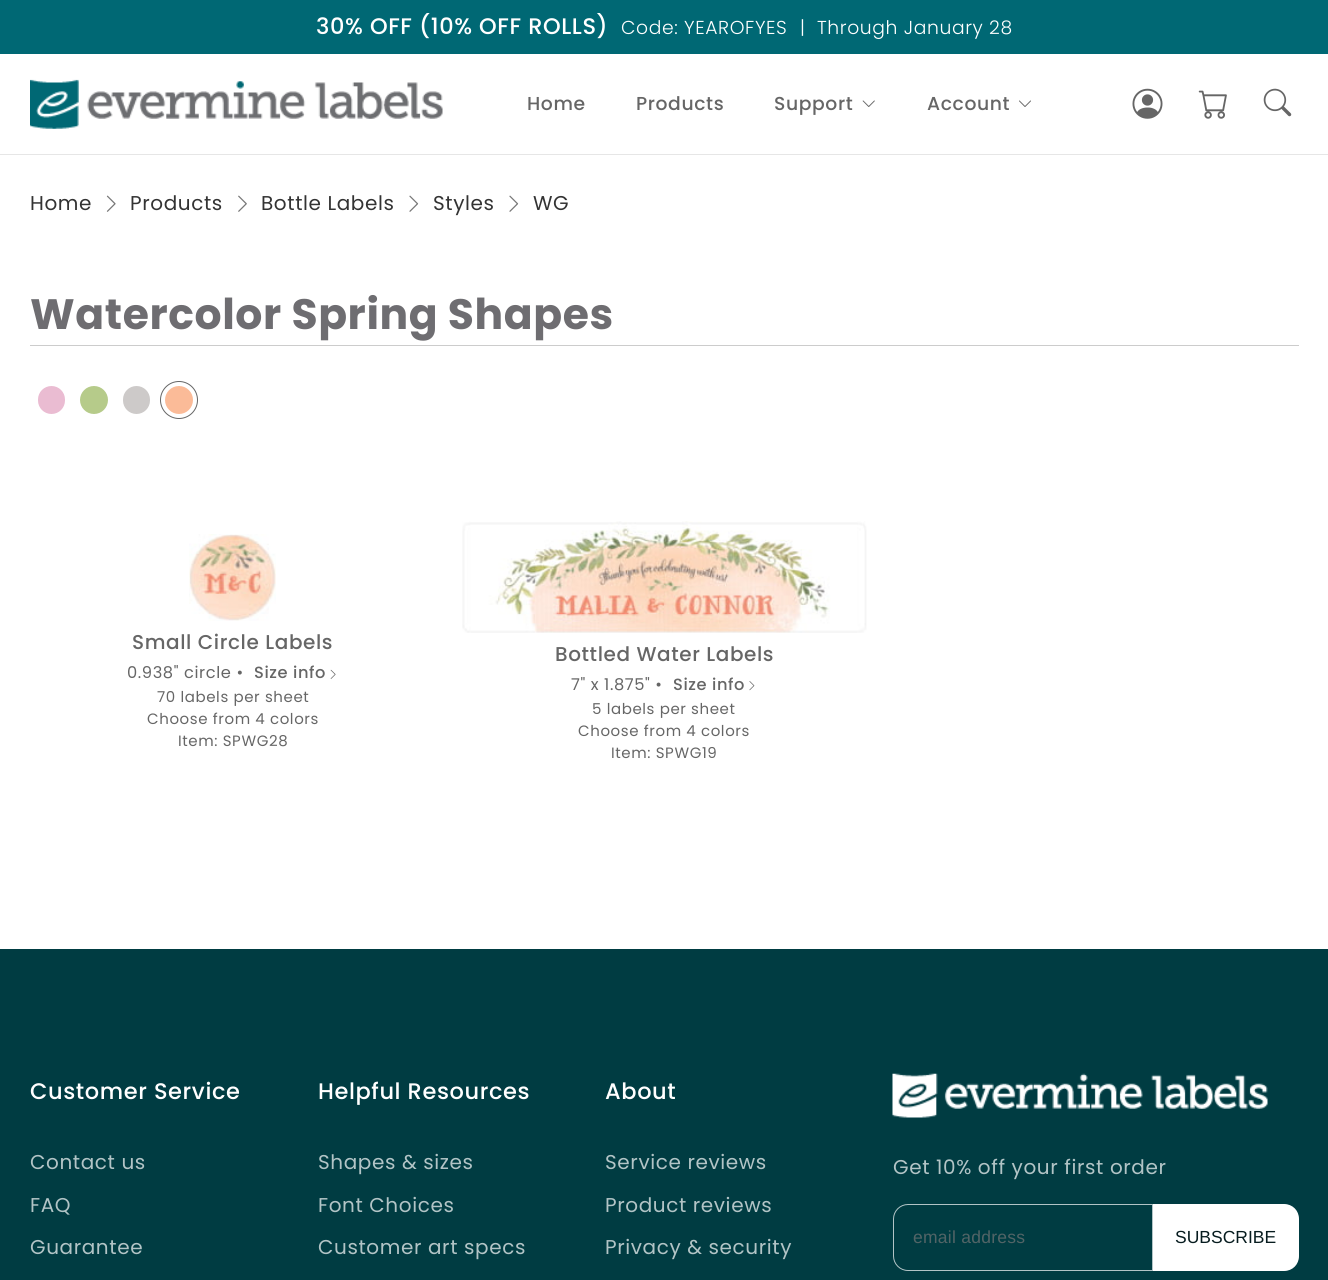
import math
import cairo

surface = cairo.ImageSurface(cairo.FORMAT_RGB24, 1328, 1280)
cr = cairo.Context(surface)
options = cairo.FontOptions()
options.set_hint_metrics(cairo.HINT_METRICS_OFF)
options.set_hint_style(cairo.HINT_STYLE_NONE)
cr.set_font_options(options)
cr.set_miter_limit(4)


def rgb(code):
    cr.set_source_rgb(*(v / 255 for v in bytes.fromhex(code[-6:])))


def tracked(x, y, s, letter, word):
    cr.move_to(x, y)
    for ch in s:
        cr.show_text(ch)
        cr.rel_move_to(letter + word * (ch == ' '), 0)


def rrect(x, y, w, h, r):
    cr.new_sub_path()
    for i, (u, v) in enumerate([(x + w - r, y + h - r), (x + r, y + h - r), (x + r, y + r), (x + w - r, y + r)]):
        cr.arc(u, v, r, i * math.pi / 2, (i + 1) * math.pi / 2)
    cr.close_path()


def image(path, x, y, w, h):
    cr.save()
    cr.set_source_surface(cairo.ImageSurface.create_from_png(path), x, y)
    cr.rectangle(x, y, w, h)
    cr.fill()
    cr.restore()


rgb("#ffffff")
cr.paint()
rgb("#006874")
cr.rectangle(0, 0, 1328, 54)
cr.fill()
rgb("#e6e6e6")
cr.rectangle(0, 154, 1328, 1)
cr.fill()
image("img/1.png", 30, 79, 413, 50)
image("img/2.png", 862, 100, 13, 7)
image("img/3.png", 1019, 100, 12, 7)
image("img/4.png", 1132, 88, 31, 31)
image("img/5.png", 1198, 90, 29, 29)
image("img/6.png", 1263, 88, 29, 29)
image("img/7.png", 106, 195, 10, 17)
image("img/8.png", 238, 195, 9, 17)
image("img/9.png", 409, 195, 10, 17)
image("img/9.png", 509, 195, 10, 17)
rgb("#cccccc")
cr.rectangle(30, 345, 1269, 1)
cr.fill()
rgb("#eabcd2")
rrect(40.5, 388.5, 22, 23, 11)
cr.fill_preserve()
cr.set_line_width(5)
cr.stroke()
rgb("#b6cb8a")
cr.arc(94, 400, 11.5, 0, 2 * math.pi)
cr.fill_preserve()
cr.stroke()
rgb("#cdcac9")
rrect(125.5, 388.5, 22, 23, 11)
cr.fill_preserve()
cr.stroke()
cr.arc(179, 400, 18.5, 0, 2 * math.pi)
rgb("#666666")
cr.set_line_width(1)
cr.stroke()
rgb("#fbbb98")
cr.arc(179, 400, 11.5, 0, 2 * math.pi)
cr.fill_preserve()
cr.set_line_width(5)
cr.stroke()
image("img/10.png", 189, 534, 87, 87)
image("img/11.png", 330, 669, 6, 10)
image("img/12.png", 462, 521, 405, 112)
image("img/13.png", 749, 681, 6, 10)
rgb("#003c42")
cr.rectangle(0, 949, 1328, 331)
cr.fill()
image("img/14.png", 892, 1073, 376, 45)
cr.new_path()
cr.move_to(908, 1204.5)
cr.line_to(1152.5, 1204.5)
cr.line_to(1152.5, 1270.5)
cr.line_to(908, 1270.5)
cr.curve_to(900, 1270.5, 893.5, 1264, 893.5, 1256)
cr.line_to(893.5, 1219)
cr.curve_to(893.5, 1211, 900, 1204.5, 908, 1204.5)
cr.close_path()
rgb("#b2c4c6")
cr.set_line_width(1)
cr.stroke()
rgb("#ffffff")
cr.new_path()
cr.move_to(1153, 1204)
cr.line_to(1284, 1204)
cr.curve_to(1292.5, 1204, 1299, 1210.5, 1299, 1219)
cr.line_to(1299, 1256)
cr.curve_to(1299, 1264.5, 1292.5, 1271, 1284, 1271)
cr.line_to(1153, 1271)
cr.close_path()
cr.fill()
cr.select_font_face("Poppins Medium")
cr.set_font_size(22.5)
tracked(316, 34, "30% OFF (10% OFF ROLLS)", 0.6, 0)
cr.select_font_face("Poppins Light")
cr.set_font_size(18.75)
tracked(621, 34, "Code: YEAROFYES", 0.6, 0)
tracked(800, 34, "|  Through January 28", 0.6, 0)
cr.select_font_face("Poppins Medium")
rgb("#666666")
for x, y, s in [
    (527, 110, "Home"),
    (636, 110, "Products"),
    (774, 110, "Support"),
    (927, 110, "Account"),
]:
    tracked(x, y, s, 0.6, 0)
cr.select_font_face("Poppins")
cr.set_font_size(20)
rgb("#333333")
for x, y, s in [
    (30, 210, "Home"),
    (130, 210, "Products"),
    (261, 210, "Bottle Labels"),
    (433, 210, "Styles"),
    (533, 210, "WG"),
]:
    tracked(x, y, s, 0.6, 0)
cr.select_font_face("Poppins", cairo.FONT_SLANT_NORMAL, cairo.FONT_WEIGHT_BOLD)
cr.set_font_size(42.5)
rgb("#6e6d71")
tracked(30, 329, "Watercolor Spring Shapes", 0.6, 0)
cr.select_font_face("Poppins Medium")
cr.set_font_size(20)
rgb("#666666")
tracked(132, 649, "Small Circle Labels", 0.6, 0)
cr.select_font_face("Poppins")
cr.set_font_size(16.25)
tracked(127, 678, "0.938\" circle •", 0.6, 0)
cr.select_font_face("Poppins Medium")
tracked(254, 678, "Size info", 0.6, 0)
cr.select_font_face("Poppins")
cr.set_font_size(15)
for x, y, s in [
    (157, 702, "70 labels per sheet"),
    (147, 724, "Choose from 4 colors"),
    (178, 746, "Item: SPWG28"),
]:
    tracked(x, y, s, 0.6, 0)
cr.select_font_face("Poppins Medium")
cr.set_font_size(20)
tracked(555, 661, "Bottled Water Labels", 0.6, 0)
cr.select_font_face("Poppins")
cr.set_font_size(16.25)
tracked(571, 690, "7\" x 1.875\" •", 0.6, 0)
cr.select_font_face("Poppins Medium")
tracked(673, 690, "Size info", 0.6, 0)
cr.select_font_face("Poppins")
cr.set_font_size(15)
for x, y, s in [
    (592, 714, "5 labels per sheet"),
    (578, 736, "Choose from 4 colors"),
    (611, 758, "Item: SPWG19"),
]:
    tracked(x, y, s, 0.6, 0)
cr.select_font_face("Poppins Medium")
cr.set_font_size(22.5)
rgb("#ffffff")
tracked(30, 1099, "Customer Service", 0.6, 0)
cr.select_font_face("Poppins")
cr.set_font_size(20)
rgb("#b2c4c6")
for x, y, s in [
    (30, 1169, "Contact us"),
    (30, 1212, "FAQ"),
    (30, 1254, "Guarantee"),
]:
    tracked(x, y, s, 0.6, 0)
cr.select_font_face("Poppins Medium")
cr.set_font_size(22.5)
rgb("#ffffff")
tracked(318, 1099, "Helpful Resources", 0.6, 0)
cr.select_font_face("Poppins")
cr.set_font_size(20)
rgb("#b2c4c6")
for x, y, s in [
    (318, 1169, "Shapes & sizes"),
    (318, 1212, "Font Choices"),
    (318, 1254, "Customer art specs"),
]:
    tracked(x, y, s, 0.6, 0)
cr.select_font_face("Poppins Medium")
cr.set_font_size(22.5)
rgb("#ffffff")
tracked(605, 1099, "About", 0.6, 0)
cr.select_font_face("Poppins")
cr.set_font_size(20)
rgb("#b2c4c6")
for x, y, s in [
    (605, 1169, "Service reviews"),
    (605, 1212, "Product reviews"),
    (605, 1254, "Privacy & security"),
    (893, 1174, "Get 10% off your first order"),
]:
    tracked(x, y, s, 0.6, 0)
cr.select_font_face("Liberation Sans")
cr.set_font_size(17.5)
rgb("#526466")
tracked(913, 1243, "email address", 0.25, 0)
rgb("#071c1f")
cr.move_to(1175, 1243)
cr.show_text("SUBSCRIBE")
surface.write_to_png("page.png")
